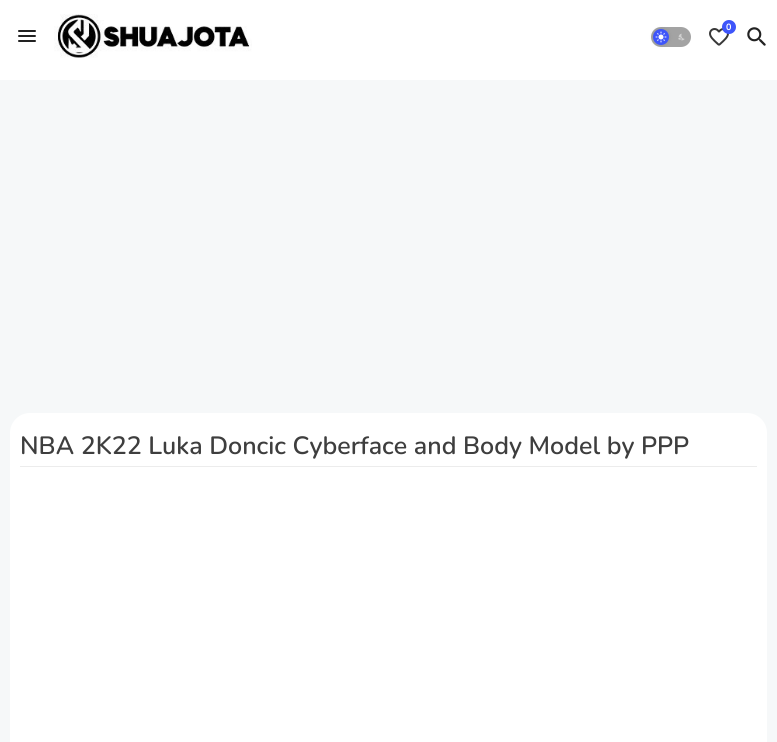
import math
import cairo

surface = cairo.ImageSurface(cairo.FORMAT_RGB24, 777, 742)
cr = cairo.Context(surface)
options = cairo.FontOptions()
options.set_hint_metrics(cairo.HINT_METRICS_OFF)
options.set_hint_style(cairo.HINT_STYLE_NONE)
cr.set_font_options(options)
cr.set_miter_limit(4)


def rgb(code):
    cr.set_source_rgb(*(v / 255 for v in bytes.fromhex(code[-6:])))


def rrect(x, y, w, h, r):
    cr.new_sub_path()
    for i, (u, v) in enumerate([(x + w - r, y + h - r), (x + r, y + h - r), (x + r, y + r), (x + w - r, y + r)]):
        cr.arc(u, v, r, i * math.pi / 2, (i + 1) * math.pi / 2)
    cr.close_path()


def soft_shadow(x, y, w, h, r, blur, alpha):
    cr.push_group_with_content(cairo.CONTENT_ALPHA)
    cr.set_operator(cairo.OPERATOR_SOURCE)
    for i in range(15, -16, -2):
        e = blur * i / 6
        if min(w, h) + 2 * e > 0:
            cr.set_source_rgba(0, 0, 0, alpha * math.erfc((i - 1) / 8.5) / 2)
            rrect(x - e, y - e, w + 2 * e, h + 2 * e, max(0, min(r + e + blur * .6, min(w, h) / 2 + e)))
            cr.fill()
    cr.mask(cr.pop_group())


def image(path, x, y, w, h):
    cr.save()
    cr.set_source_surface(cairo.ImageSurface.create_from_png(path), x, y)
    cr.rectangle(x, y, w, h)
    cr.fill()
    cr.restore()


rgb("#f6f8f9")
cr.paint()
rgb("#ffffff")
cr.rectangle(0, 0, 777, 80)
cr.fill()
image("img/1.png", 18, 30, 18, 12)
image("img/2.png", 54, 14, 198, 44)
rgb("#a3a3a3")
rrect(651, 27, 40, 20, 10)
cr.fill()
rgb("#000000")
soft_shadow(653, 29, 16, 16, 8, 2, 0.1)
rgb("#3e55fa")
cr.arc(661, 37, 8, 0, 2 * math.pi)
cr.fill()
image("img/3.png", 655, 31, 12, 12)
image("img/4.png", 678, 33, 7, 8)
image("img/5.png", 709, 28, 20, 18)
cr.arc(729, 27, 7, 0, 2 * math.pi)
cr.fill()
image("img/6.png", 747, 27, 19, 19)
rgb("#ffffff")
rrect(10, 413, 757, 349, 20)
cr.fill()
rgb("#ececec")
cr.rectangle(20, 466, 737, 1)
cr.fill()
cr.select_font_face("Nunito", cairo.FONT_SLANT_NORMAL, cairo.FONT_WEIGHT_BOLD)
cr.set_font_size(9)
rgb("#ffffff")
cr.move_to(726, 30)
cr.show_text("0")
cr.select_font_face("Nunito SemiBold")
cr.set_font_size(25)
rgb("#3e3e3e")
cr.move_to(20, 454)
cr.show_text("NBA 2K22 Luka Doncic Cyberface and Body Model by PPP")
surface.write_to_png("page.png")
